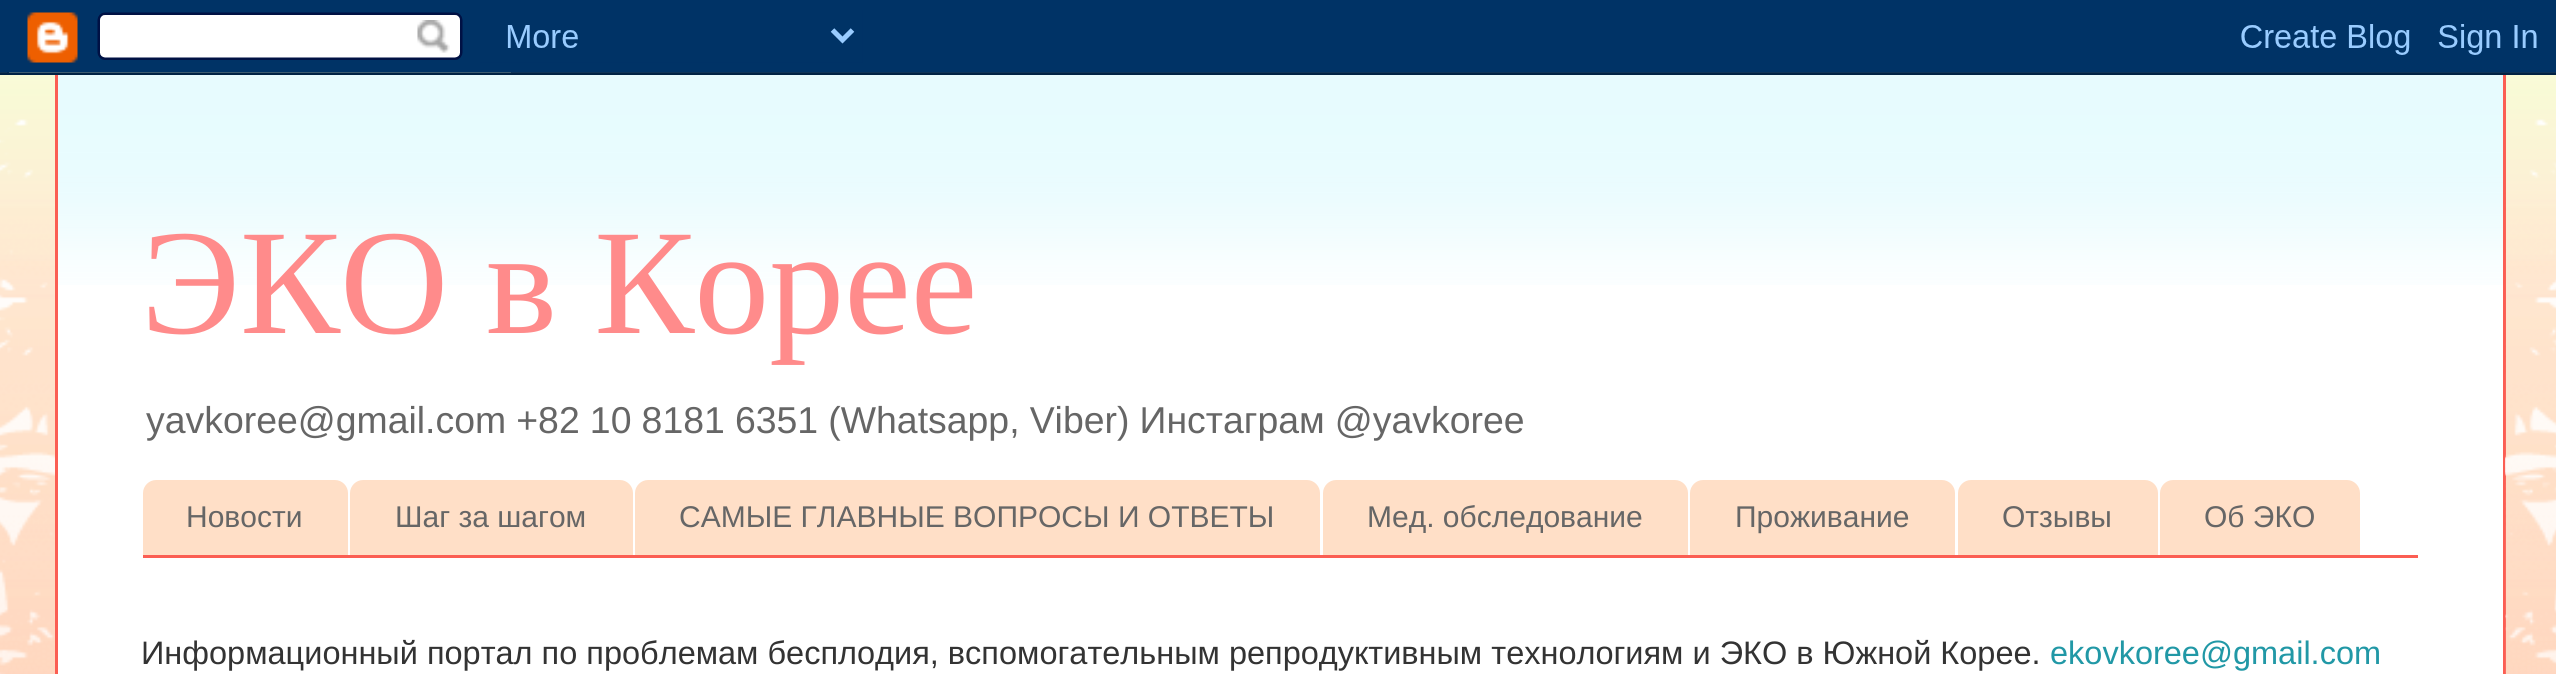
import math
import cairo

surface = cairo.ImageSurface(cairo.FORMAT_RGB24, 2556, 674)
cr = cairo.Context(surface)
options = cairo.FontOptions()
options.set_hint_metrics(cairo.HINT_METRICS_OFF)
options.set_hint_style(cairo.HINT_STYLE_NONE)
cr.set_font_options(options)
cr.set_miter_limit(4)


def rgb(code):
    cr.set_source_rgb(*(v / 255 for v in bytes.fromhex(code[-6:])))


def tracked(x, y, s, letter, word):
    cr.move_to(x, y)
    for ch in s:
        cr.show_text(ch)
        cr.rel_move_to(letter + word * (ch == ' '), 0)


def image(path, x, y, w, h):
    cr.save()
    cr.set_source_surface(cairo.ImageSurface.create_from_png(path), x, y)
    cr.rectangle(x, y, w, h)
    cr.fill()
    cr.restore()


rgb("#ffffff")
cr.paint()
image("img/1.png", 0, 72, 2556, 602)
image("img/2.png", 0, 0, 2556, 75)
image("img/3.png", 0, 119, 55, 555)
rgb("#ffffff")
cr.rectangle(58, 75, 2445, 599)
cr.fill()
image("img/4.png", 58, 75, 2445, 210)
rgb("#fb5e53")
cr.rectangle(2503, 75, 3, 599)
cr.fill()
cr.rectangle(55, 75, 3, 599)
cr.fill()
image("img/5.png", 2505, 119, 51, 555)
cr.rectangle(143, 555, 2275, 3)
cr.fill()
rgb("#ffdfc7")
cr.new_path()
cr.move_to(156, 480)
cr.line_to(335, 480)
cr.curve_to(342, 480, 348, 486, 348, 493)
cr.line_to(348, 555)
cr.line_to(143, 555)
cr.line_to(143, 493)
cr.curve_to(143, 486, 149, 480, 156, 480)
cr.close_path()
cr.fill()
cr.new_path()
cr.move_to(363, 480)
cr.line_to(620, 480)
cr.curve_to(627, 480, 633, 486, 633, 493)
cr.line_to(633, 555)
cr.line_to(350, 555)
cr.line_to(350, 493)
cr.curve_to(350, 486, 356, 480, 363, 480)
cr.close_path()
cr.fill()
cr.new_path()
cr.move_to(648, 480)
cr.line_to(1307, 480)
cr.curve_to(1314, 480, 1320, 486, 1320, 493)
cr.line_to(1320, 555)
cr.line_to(635, 555)
cr.line_to(635, 493)
cr.curve_to(635, 486, 641, 480, 648, 480)
cr.close_path()
cr.fill()
cr.new_path()
cr.move_to(1336, 480)
cr.line_to(1675, 480)
cr.curve_to(1682, 480, 1688, 486, 1688, 493)
cr.line_to(1688, 555)
cr.line_to(1323, 555)
cr.line_to(1323, 493)
cr.curve_to(1323, 486, 1329, 480, 1336, 480)
cr.close_path()
cr.fill()
cr.new_path()
cr.move_to(1703, 480)
cr.line_to(1942, 480)
cr.curve_to(1949, 480, 1955, 486, 1955, 493)
cr.line_to(1955, 555)
cr.line_to(1690, 555)
cr.line_to(1690, 493)
cr.curve_to(1690, 486, 1696, 480, 1703, 480)
cr.close_path()
cr.fill()
cr.new_path()
cr.move_to(1971, 480)
cr.line_to(2145, 480)
cr.curve_to(2152, 480, 2158, 486, 2158, 493)
cr.line_to(2158, 555)
cr.line_to(1958, 555)
cr.line_to(1958, 493)
cr.curve_to(1958, 486, 1964, 480, 1971, 480)
cr.close_path()
cr.fill()
cr.new_path()
cr.move_to(2173, 480)
cr.line_to(2347, 480)
cr.curve_to(2354, 480, 2360, 486, 2360, 493)
cr.line_to(2360, 555)
cr.line_to(2160, 555)
cr.line_to(2160, 493)
cr.curve_to(2160, 486, 2166, 480, 2173, 480)
cr.close_path()
cr.fill()
cr.select_font_face("Liberation Serif")
cr.set_font_size(150)
rgb("#ff8b8b")
cr.move_to(141, 333)
cr.show_text("ЭКО в Корее")
cr.select_font_face("Liberation Sans")
cr.set_font_size(37.4)
rgb("#666666")
tracked(146, 433, "yavkoree@gmail.com +82 10 8181 6351 (Whatsapp, Viber) Инстаграм @yavkoree", 0, -0.25)
cr.set_font_size(30)
for x, y, s in [
    (186, 527, "Новости"),
    (395, 527, "Шаг за шагом"),
    (679, 527, "САМЫЕ ГЛАВНЫЕ ВОПРОСЫ И ОТВЕТЫ"),
    (1367, 527, "Мед. обследование"),
    (1735, 527, "Проживание"),
    (2002, 527, "Отзывы"),
    (2204, 527, "Об ЭКО"),
]:
    cr.move_to(x, y)
    cr.show_text(s)
cr.set_font_size(32.5)
rgb("#333333")
cr.move_to(141, 664)
cr.show_text("Информационный портал по проблемам бесплодия, вспомогательным репродуктивным технологиям и ЭКО в Южной Корее.")
rgb("#2198a6")
cr.move_to(2050, 664)
cr.show_text("ekovkoree@gmail.com")
surface.write_to_png("page.png")
